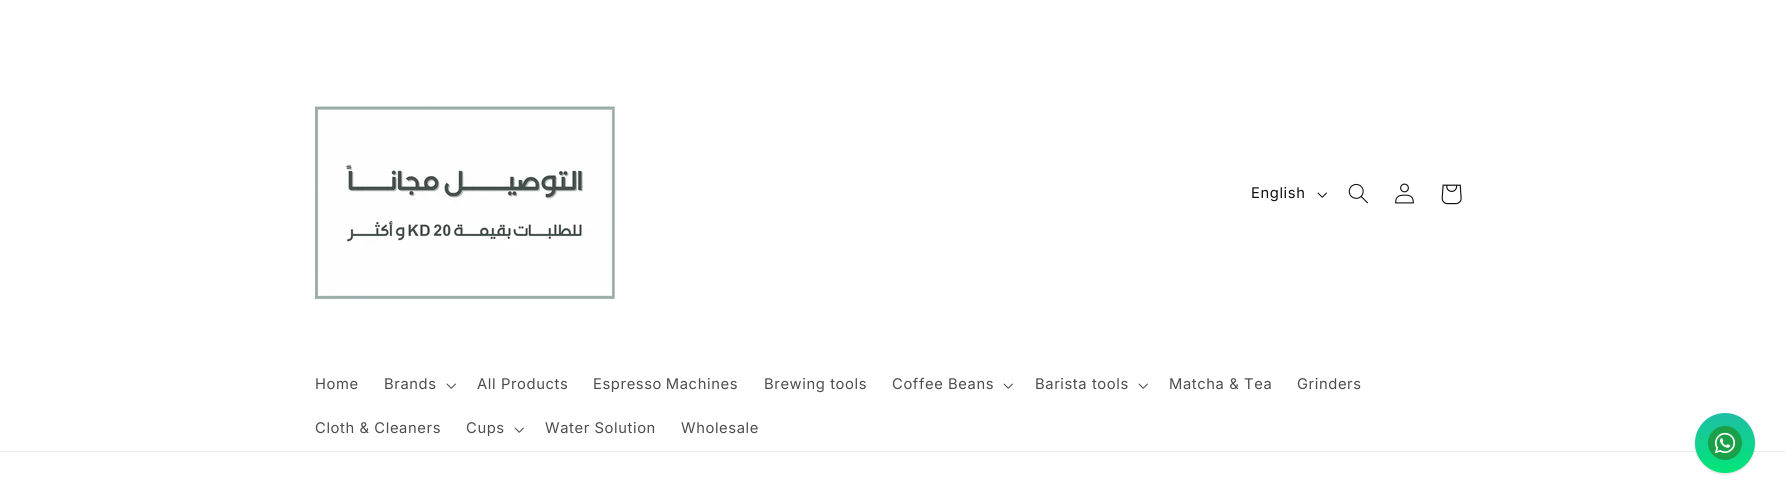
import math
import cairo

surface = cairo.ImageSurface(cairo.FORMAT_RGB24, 1785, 503)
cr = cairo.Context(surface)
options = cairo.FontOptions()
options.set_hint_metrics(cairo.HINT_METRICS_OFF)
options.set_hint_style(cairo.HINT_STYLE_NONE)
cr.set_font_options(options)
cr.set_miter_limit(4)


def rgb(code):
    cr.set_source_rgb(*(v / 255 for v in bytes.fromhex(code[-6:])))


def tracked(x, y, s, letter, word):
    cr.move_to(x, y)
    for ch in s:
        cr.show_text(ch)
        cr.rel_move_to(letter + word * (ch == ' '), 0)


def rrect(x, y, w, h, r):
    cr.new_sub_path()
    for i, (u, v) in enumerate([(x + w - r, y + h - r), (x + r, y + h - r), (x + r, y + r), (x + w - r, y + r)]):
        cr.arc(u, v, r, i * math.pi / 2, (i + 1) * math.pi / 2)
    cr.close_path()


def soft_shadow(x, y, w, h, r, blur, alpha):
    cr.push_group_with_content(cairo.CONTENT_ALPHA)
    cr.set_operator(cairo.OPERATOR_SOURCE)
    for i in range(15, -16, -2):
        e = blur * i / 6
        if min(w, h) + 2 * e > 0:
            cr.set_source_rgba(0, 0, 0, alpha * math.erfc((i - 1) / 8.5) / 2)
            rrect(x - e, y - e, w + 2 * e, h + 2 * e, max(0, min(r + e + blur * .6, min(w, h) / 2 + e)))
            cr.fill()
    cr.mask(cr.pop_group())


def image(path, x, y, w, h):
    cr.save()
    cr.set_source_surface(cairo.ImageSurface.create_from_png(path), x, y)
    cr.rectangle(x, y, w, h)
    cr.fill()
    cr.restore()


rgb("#ffffff")
cr.paint()
rgb("#ececec")
cr.rectangle(0, 451, 1785, 1)
cr.fill()
image("img/1.png", 315, 105, 300, 195)
image("img/2.png", 1317, 192, 10, 6)
image("img/3.png", 1348, 183, 20, 21)
image("img/4.png", 1395, 183, 19, 21)
image("img/5.png", 1441, 184, 21, 21)
image("img/6.png", 446, 383, 10, 6)
image("img/6.png", 1003, 383, 10, 6)
image("img/6.png", 1138, 383, 10, 6)
image("img/6.png", 514, 427, 10, 6)
rgb("#000000")
soft_shadow(1695, 414, 60, 60, 30, 1, 0.15)
gradient = cairo.LinearGradient(1725, 413, 1725, 473)
gradient.add_color_stop_rgba(0, 0.118, 0.745, 0.647, 1)
gradient.add_color_stop_rgba(1, 0.004, 0.902, 0.467, 1)
cr.set_source(gradient)
cr.arc(1725, 443, 30, 0, 2 * math.pi)
cr.fill()
image("img/7.png", 1708, 426, 34, 34)
cr.select_font_face("Inter")
cr.set_font_size(14.75)
rgb("#121212")
tracked(1251, 198, "English", 0.6, 0)
rgb("#4d4d4d")
for x, y, s in [
    (315, 389, "Home"),
    (384, 389, "Brands"),
    (477, 389, "All Products"),
]:
    tracked(x, y, s, 0.6, 0)
tracked(593, 389, "Espresso Machines", 0.6, -1)
for x, y, s in [
    (764, 389, "Brewing tools"),
    (892, 389, "Coffee Beans"),
    (1035, 389, "Barista tools"),
    (1169, 389, "Matcha & Tea"),
    (1297, 389, "Grinders"),
    (315, 433, "Cloth & Cleaners"),
    (466, 433, "Cups"),
    (545, 433, "Water Solution"),
    (681, 433, "Wholesale"),
]:
    tracked(x, y, s, 0.6, 0)
surface.write_to_png("page.png")
